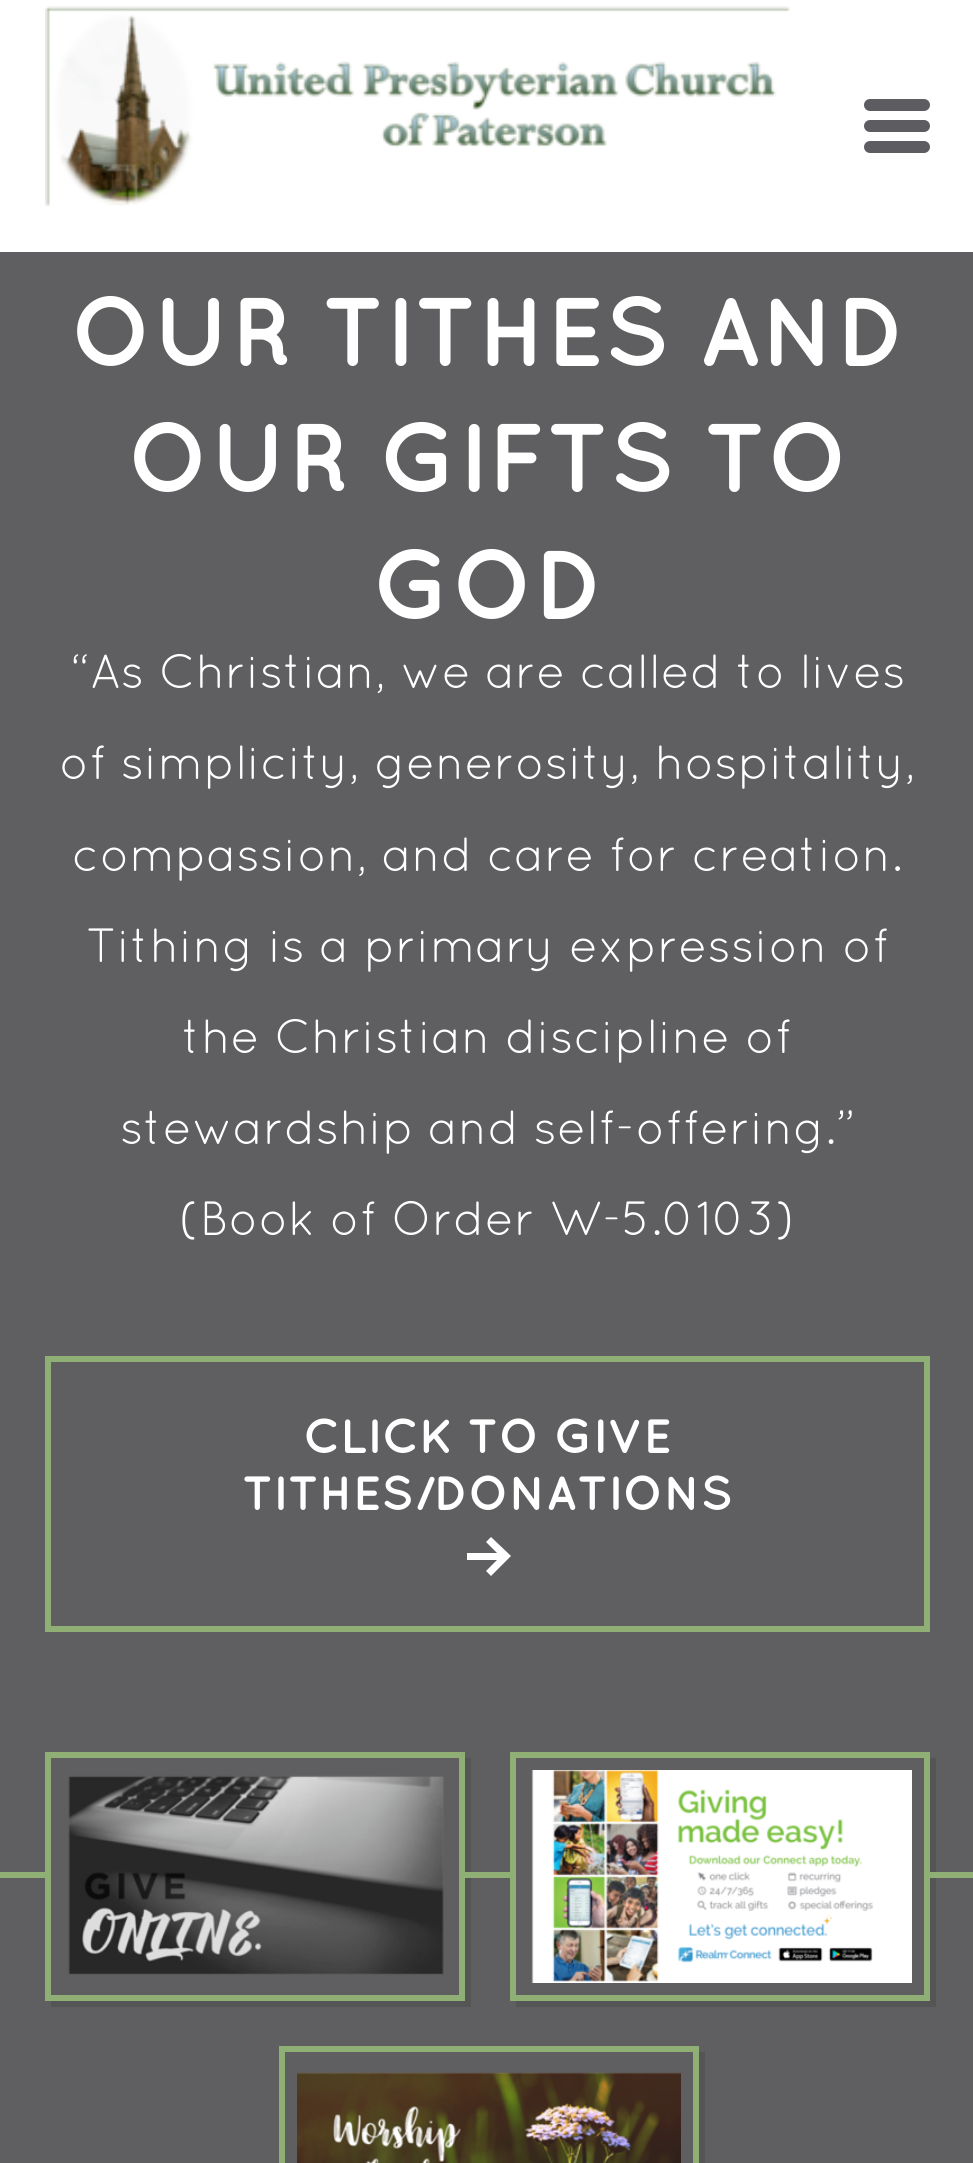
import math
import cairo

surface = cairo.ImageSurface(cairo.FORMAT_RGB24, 973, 2163)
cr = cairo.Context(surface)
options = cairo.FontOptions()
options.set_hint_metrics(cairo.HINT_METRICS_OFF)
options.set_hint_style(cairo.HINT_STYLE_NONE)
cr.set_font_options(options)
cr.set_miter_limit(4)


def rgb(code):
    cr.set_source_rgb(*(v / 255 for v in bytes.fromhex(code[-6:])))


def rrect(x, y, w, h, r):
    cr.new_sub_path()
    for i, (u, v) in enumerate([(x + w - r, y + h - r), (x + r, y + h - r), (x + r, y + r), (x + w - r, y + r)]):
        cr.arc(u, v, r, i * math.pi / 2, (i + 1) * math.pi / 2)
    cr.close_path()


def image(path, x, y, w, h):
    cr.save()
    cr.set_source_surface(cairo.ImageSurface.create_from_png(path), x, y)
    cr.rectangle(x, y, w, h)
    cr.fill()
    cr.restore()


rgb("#ffffff")
cr.paint()
image("img/1.png", 45, 6, 746, 201)
rgb("#5d5c61")
rrect(864, 99, 66, 12, 6)
cr.fill()
rrect(864, 120, 66, 12, 6)
cr.fill()
rrect(864, 141, 66, 12, 6)
cr.fill()
rgb("#5f5e60")
cr.rectangle(0, 252, 973, 1911)
cr.fill()
cr.rectangle(48, 1359, 879, 270)
rgb("#90af74")
cr.set_line_width(6)
cr.stroke()
rgb("#ffffff")
cr.new_path()
cr.move_to(491, 1537)
cr.line_to(486, 1542)
cr.line_to(497, 1553)
cr.line_to(467, 1553)
cr.line_to(467, 1560)
cr.line_to(497, 1560)
cr.line_to(486, 1571)
cr.line_to(491, 1576)
cr.line_to(511, 1556)
cr.close_path()
cr.fill()
rgb("#565556")
cr.new_path()
cr.move_to(51, 2001)
cr.line_to(51, 2007)
cr.line_to(471, 2007)
cr.line_to(471, 1758)
cr.line_to(465, 1758)
cr.line_to(465, 2001)
cr.close_path()
cr.fill()
cr.rectangle(48, 1755, 414, 243)
rgb("#90af74")
cr.stroke()
cr.rectangle(0, 1872, 51, 6)
cr.fill()
image("img/2.png", 68, 1775, 376, 200)
rgb("#565556")
cr.new_path()
cr.move_to(516, 2001)
cr.line_to(516, 2007)
cr.line_to(936, 2007)
cr.line_to(936, 1758)
cr.line_to(930, 1758)
cr.line_to(930, 2001)
cr.close_path()
cr.fill()
cr.rectangle(513, 1755, 414, 243)
rgb("#90af74")
cr.stroke()
cr.rectangle(465, 1872, 45, 6)
cr.fill()
image("img/3.png", 531, 1770, 381, 213)
cr.rectangle(924, 1872, 49, 6)
cr.fill()
rgb("#565556")
cr.new_path()
cr.move_to(285, 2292)
cr.line_to(285, 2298)
cr.line_to(705, 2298)
cr.line_to(705, 2052)
cr.line_to(699, 2052)
cr.line_to(699, 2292)
cr.close_path()
cr.fill()
cr.rectangle(282, 2049, 414, 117)
rgb("#90af74")
cr.stroke()
image("img/4.png", 297, 2072, 384, 91)
cr.select_font_face("Quicksand", cairo.FONT_SLANT_NORMAL, cairo.FONT_WEIGHT_BOLD)
cr.set_font_size(97.25)
rgb("#ffffff")
for x, y, s in [
    (70, 366, "OUR TITHES AND"),
    (127, 492, "OUR GIFTS TO"),
    (372, 619, "GOD"),
]:
    cr.move_to(x, y)
    cr.show_text(s)
cr.select_font_face("Quicksand")
cr.set_font_size(48)
for x, y, s in [
    (70, 688, "“As Christian, we are called to lives"),
    (59, 779, "of simplicity, generosity, hospitality,"),
    (72, 871, "compassion, and care for creation."),
    (86, 962, "Tithing is a primary expression of"),
    (182, 1053, "the Christian discipline of"),
    (120, 1144, "stewardship and self-offering.”"),
    (179, 1235, "(Book of Order W-5.0103)"),
]:
    cr.move_to(x, y)
    cr.show_text(s)
cr.select_font_face("Quicksand", cairo.FONT_SLANT_NORMAL, cairo.FONT_WEIGHT_BOLD)
cr.move_to(303, 1453)
cr.show_text("CLICK TO GIVE")
cr.move_to(242, 1510)
cr.show_text("TITHES/DONATIONS")
surface.write_to_png("page.png")
